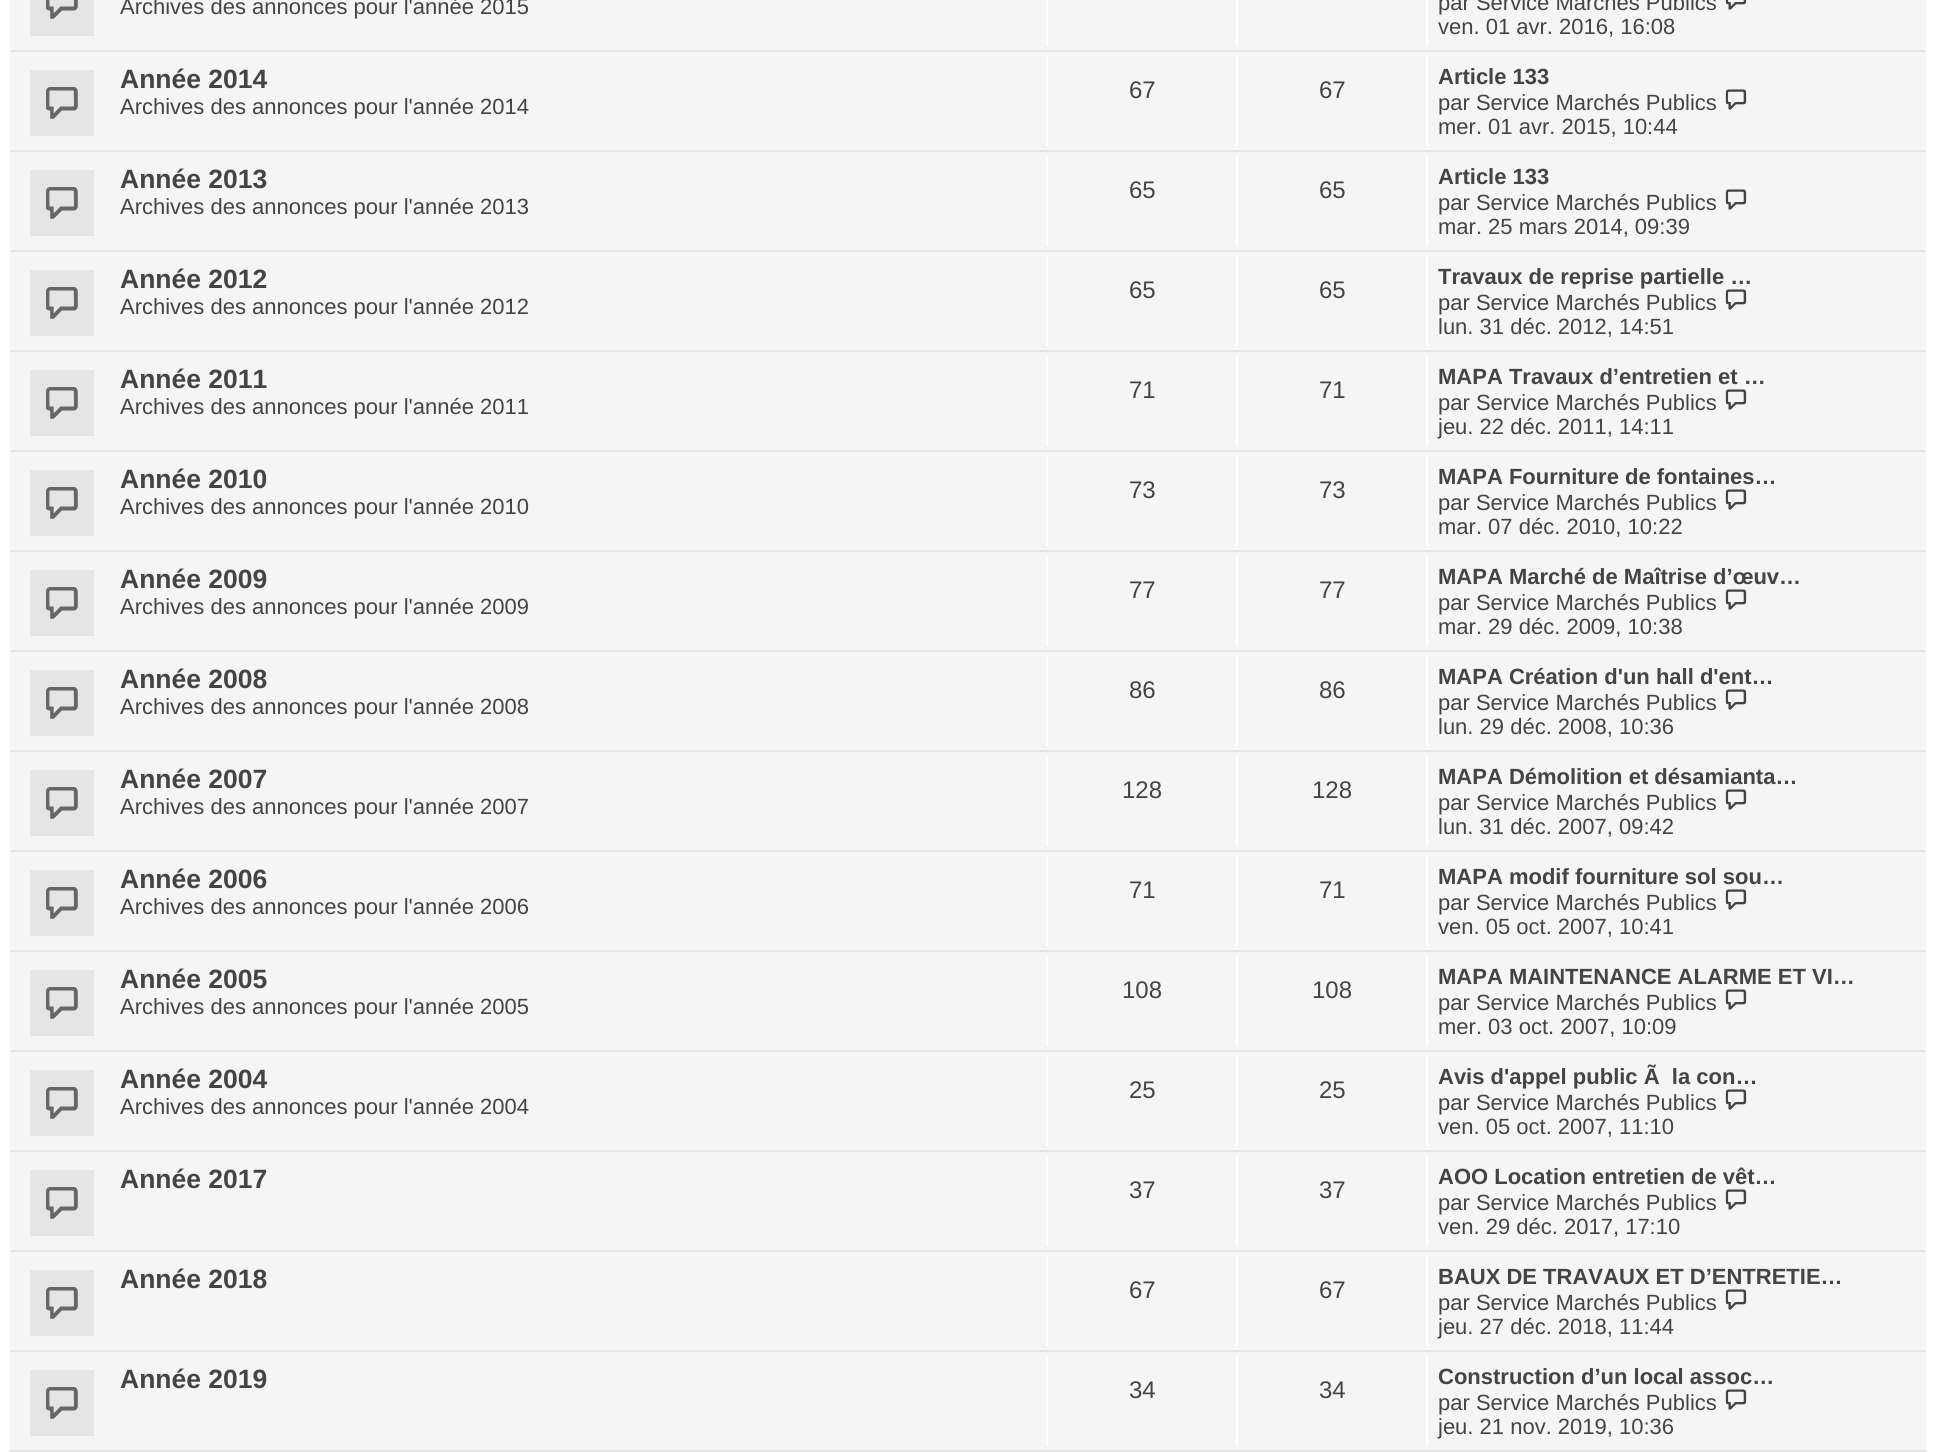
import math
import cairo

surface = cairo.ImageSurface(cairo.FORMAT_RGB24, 1936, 1452)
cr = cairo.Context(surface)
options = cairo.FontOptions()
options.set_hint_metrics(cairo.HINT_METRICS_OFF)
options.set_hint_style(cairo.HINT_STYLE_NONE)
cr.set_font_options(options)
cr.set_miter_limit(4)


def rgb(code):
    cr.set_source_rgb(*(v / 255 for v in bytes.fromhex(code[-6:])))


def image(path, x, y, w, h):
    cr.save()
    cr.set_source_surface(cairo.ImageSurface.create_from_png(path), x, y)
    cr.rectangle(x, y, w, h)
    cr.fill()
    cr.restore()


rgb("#ffffff")
cr.paint()
for x, y, w, h, color in [
    (10, 0, 1916, 1450, "#f5f5f5"),
    (10, 50, 1916, 2, "#e5e5e5"),
    (30, 0, 64, 36, "#e5e5e5"),
]:
    rgb(color)
    cr.rectangle(x, y, w, h)
    cr.fill()
image("img/1.png", 46, 0, 32, 19)
for x, y, w, h, color in [
    (1046, 0, 2, 46, "#ffffff"),
    (1236, 0, 2, 46, "#ffffff"),
    (1426, 0, 2, 46, "#ffffff"),
]:
    rgb(color)
    cr.rectangle(x, y, w, h)
    cr.fill()
image("img/2.png", 1725, 0, 22, 10)
rgb("#e5e5e5")
cr.rectangle(10, 150, 1916, 2)
cr.fill()
cr.rectangle(30, 70, 64, 66)
cr.fill()
image("img/3.png", 46, 87, 32, 32)
for x, y, w, h, color in [
    (1046, 56, 2, 90, "#ffffff"),
    (1236, 56, 2, 90, "#ffffff"),
    (1426, 56, 2, 90, "#ffffff"),
]:
    rgb(color)
    cr.rectangle(x, y, w, h)
    cr.fill()
image("img/4.png", 1725, 89, 22, 21)
rgb("#e5e5e5")
cr.rectangle(10, 250, 1916, 2)
cr.fill()
cr.rectangle(30, 170, 64, 66)
cr.fill()
image("img/3.png", 46, 187, 32, 32)
for x, y, w, h, color in [
    (1046, 156, 2, 90, "#ffffff"),
    (1236, 156, 2, 90, "#ffffff"),
    (1426, 156, 2, 90, "#ffffff"),
]:
    rgb(color)
    cr.rectangle(x, y, w, h)
    cr.fill()
image("img/4.png", 1725, 189, 22, 21)
rgb("#e5e5e5")
cr.rectangle(10, 350, 1916, 2)
cr.fill()
cr.rectangle(30, 270, 64, 66)
cr.fill()
image("img/3.png", 46, 287, 32, 32)
for x, y, w, h, color in [
    (1046, 256, 2, 90, "#ffffff"),
    (1236, 256, 2, 90, "#ffffff"),
    (1426, 256, 2, 90, "#ffffff"),
]:
    rgb(color)
    cr.rectangle(x, y, w, h)
    cr.fill()
image("img/4.png", 1725, 289, 22, 21)
rgb("#e5e5e5")
cr.rectangle(10, 450, 1916, 2)
cr.fill()
cr.rectangle(30, 370, 64, 66)
cr.fill()
image("img/3.png", 46, 387, 32, 32)
for x, y, w, h, color in [
    (1046, 356, 2, 90, "#ffffff"),
    (1236, 356, 2, 90, "#ffffff"),
    (1426, 356, 2, 90, "#ffffff"),
]:
    rgb(color)
    cr.rectangle(x, y, w, h)
    cr.fill()
image("img/4.png", 1725, 389, 22, 21)
rgb("#e5e5e5")
cr.rectangle(10, 550, 1916, 2)
cr.fill()
cr.rectangle(30, 470, 64, 66)
cr.fill()
image("img/3.png", 46, 487, 32, 32)
for x, y, w, h, color in [
    (1046, 456, 2, 90, "#ffffff"),
    (1236, 456, 2, 90, "#ffffff"),
    (1426, 456, 2, 90, "#ffffff"),
]:
    rgb(color)
    cr.rectangle(x, y, w, h)
    cr.fill()
image("img/4.png", 1725, 489, 22, 21)
rgb("#e5e5e5")
cr.rectangle(10, 650, 1916, 2)
cr.fill()
cr.rectangle(30, 570, 64, 66)
cr.fill()
image("img/3.png", 46, 587, 32, 32)
for x, y, w, h, color in [
    (1046, 556, 2, 90, "#ffffff"),
    (1236, 556, 2, 90, "#ffffff"),
    (1426, 556, 2, 90, "#ffffff"),
]:
    rgb(color)
    cr.rectangle(x, y, w, h)
    cr.fill()
image("img/4.png", 1725, 589, 22, 21)
rgb("#e5e5e5")
cr.rectangle(10, 750, 1916, 2)
cr.fill()
cr.rectangle(30, 670, 64, 66)
cr.fill()
image("img/3.png", 46, 687, 32, 32)
for x, y, w, h, color in [
    (1046, 656, 2, 90, "#ffffff"),
    (1236, 656, 2, 90, "#ffffff"),
    (1426, 656, 2, 90, "#ffffff"),
]:
    rgb(color)
    cr.rectangle(x, y, w, h)
    cr.fill()
image("img/4.png", 1725, 689, 22, 21)
rgb("#e5e5e5")
cr.rectangle(10, 850, 1916, 2)
cr.fill()
cr.rectangle(30, 770, 64, 66)
cr.fill()
image("img/3.png", 46, 787, 32, 32)
for x, y, w, h, color in [
    (1046, 756, 2, 90, "#ffffff"),
    (1236, 756, 2, 90, "#ffffff"),
    (1426, 756, 2, 90, "#ffffff"),
]:
    rgb(color)
    cr.rectangle(x, y, w, h)
    cr.fill()
image("img/4.png", 1725, 789, 22, 21)
rgb("#e5e5e5")
cr.rectangle(10, 950, 1916, 2)
cr.fill()
cr.rectangle(30, 870, 64, 66)
cr.fill()
image("img/3.png", 46, 887, 32, 32)
for x, y, w, h, color in [
    (1046, 856, 2, 90, "#ffffff"),
    (1236, 856, 2, 90, "#ffffff"),
    (1426, 856, 2, 90, "#ffffff"),
]:
    rgb(color)
    cr.rectangle(x, y, w, h)
    cr.fill()
image("img/4.png", 1725, 889, 22, 21)
rgb("#e5e5e5")
cr.rectangle(10, 1050, 1916, 2)
cr.fill()
cr.rectangle(30, 970, 64, 66)
cr.fill()
image("img/3.png", 46, 987, 32, 32)
for x, y, w, h, color in [
    (1046, 956, 2, 90, "#ffffff"),
    (1236, 956, 2, 90, "#ffffff"),
    (1426, 956, 2, 90, "#ffffff"),
]:
    rgb(color)
    cr.rectangle(x, y, w, h)
    cr.fill()
image("img/4.png", 1725, 989, 22, 21)
rgb("#e5e5e5")
cr.rectangle(10, 1150, 1916, 2)
cr.fill()
cr.rectangle(30, 1070, 64, 66)
cr.fill()
image("img/3.png", 46, 1087, 32, 32)
for x, y, w, h, color in [
    (1046, 1056, 2, 90, "#ffffff"),
    (1236, 1056, 2, 90, "#ffffff"),
    (1426, 1056, 2, 90, "#ffffff"),
]:
    rgb(color)
    cr.rectangle(x, y, w, h)
    cr.fill()
image("img/4.png", 1725, 1089, 22, 21)
rgb("#e5e5e5")
cr.rectangle(10, 1250, 1916, 2)
cr.fill()
cr.rectangle(30, 1170, 64, 66)
cr.fill()
image("img/3.png", 46, 1187, 32, 32)
for x, y, w, h, color in [
    (1046, 1156, 2, 90, "#ffffff"),
    (1236, 1156, 2, 90, "#ffffff"),
    (1426, 1156, 2, 90, "#ffffff"),
]:
    rgb(color)
    cr.rectangle(x, y, w, h)
    cr.fill()
image("img/4.png", 1725, 1189, 22, 21)
rgb("#e5e5e5")
cr.rectangle(10, 1350, 1916, 2)
cr.fill()
cr.rectangle(30, 1270, 64, 66)
cr.fill()
image("img/3.png", 46, 1287, 32, 32)
for x, y, w, h, color in [
    (1046, 1256, 2, 90, "#ffffff"),
    (1236, 1256, 2, 90, "#ffffff"),
    (1426, 1256, 2, 90, "#ffffff"),
]:
    rgb(color)
    cr.rectangle(x, y, w, h)
    cr.fill()
image("img/4.png", 1725, 1289, 22, 21)
rgb("#e5e5e5")
cr.rectangle(10, 1450, 1916, 2)
cr.fill()
cr.rectangle(30, 1370, 64, 66)
cr.fill()
image("img/5.png", 46, 1387, 32, 32)
for x, y, w, h, color in [
    (1046, 1356, 2, 90, "#ffffff"),
    (1236, 1356, 2, 90, "#ffffff"),
    (1426, 1356, 2, 90, "#ffffff"),
]:
    rgb(color)
    cr.rectangle(x, y, w, h)
    cr.fill()
image("img/4.png", 1725, 1389, 22, 21)
cr.select_font_face("Liberation Sans")
cr.set_font_size(22)
rgb("#444444")
for x, y, s in [
    (120, 14, "Archives des annonces pour l'année 2015"),
    (1438, 10, "par Service Marchés Publics"),
    (1438, 34, "ven. 01 avr. 2016, 16:08"),
]:
    cr.move_to(x, y)
    cr.show_text(s)
cr.select_font_face("Liberation Sans", cairo.FONT_SLANT_NORMAL, cairo.FONT_WEIGHT_BOLD)
cr.set_font_size(26.5)
cr.move_to(120, 88)
cr.show_text("Année 2014")
cr.select_font_face("Liberation Sans")
cr.set_font_size(22)
cr.move_to(120, 114)
cr.show_text("Archives des annonces pour l'année 2014")
cr.set_font_size(24)
cr.move_to(1129, 98)
cr.show_text("67")
cr.move_to(1319, 98)
cr.show_text("67")
cr.select_font_face("Liberation Sans", cairo.FONT_SLANT_NORMAL, cairo.FONT_WEIGHT_BOLD)
cr.set_font_size(22)
cr.move_to(1438, 84)
cr.show_text("Article 133")
cr.select_font_face("Liberation Sans")
cr.move_to(1438, 110)
cr.show_text("par Service Marchés Publics")
cr.move_to(1438, 134)
cr.show_text("mer. 01 avr. 2015, 10:44")
cr.select_font_face("Liberation Sans", cairo.FONT_SLANT_NORMAL, cairo.FONT_WEIGHT_BOLD)
cr.set_font_size(26.5)
cr.move_to(120, 188)
cr.show_text("Année 2013")
cr.select_font_face("Liberation Sans")
cr.set_font_size(22)
cr.move_to(120, 214)
cr.show_text("Archives des annonces pour l'année 2013")
cr.set_font_size(24)
cr.move_to(1129, 198)
cr.show_text("65")
cr.move_to(1319, 198)
cr.show_text("65")
cr.select_font_face("Liberation Sans", cairo.FONT_SLANT_NORMAL, cairo.FONT_WEIGHT_BOLD)
cr.set_font_size(22)
cr.move_to(1438, 184)
cr.show_text("Article 133")
cr.select_font_face("Liberation Sans")
cr.move_to(1438, 210)
cr.show_text("par Service Marchés Publics")
cr.move_to(1438, 234)
cr.show_text("mar. 25 mars 2014, 09:39")
cr.select_font_face("Liberation Sans", cairo.FONT_SLANT_NORMAL, cairo.FONT_WEIGHT_BOLD)
cr.set_font_size(26.5)
cr.move_to(120, 288)
cr.show_text("Année 2012")
cr.select_font_face("Liberation Sans")
cr.set_font_size(22)
cr.move_to(120, 314)
cr.show_text("Archives des annonces pour l'année 2012")
cr.set_font_size(24)
cr.move_to(1129, 298)
cr.show_text("65")
cr.move_to(1319, 298)
cr.show_text("65")
cr.select_font_face("Liberation Sans", cairo.FONT_SLANT_NORMAL, cairo.FONT_WEIGHT_BOLD)
cr.set_font_size(22)
cr.move_to(1438, 284)
cr.show_text("Travaux de reprise partielle …")
cr.select_font_face("Liberation Sans")
cr.move_to(1438, 310)
cr.show_text("par Service Marchés Publics")
cr.move_to(1438, 334)
cr.show_text("lun. 31 déc. 2012, 14:51")
cr.select_font_face("Liberation Sans", cairo.FONT_SLANT_NORMAL, cairo.FONT_WEIGHT_BOLD)
cr.set_font_size(26.5)
cr.move_to(120, 388)
cr.show_text("Année 2011")
cr.select_font_face("Liberation Sans")
cr.set_font_size(22)
cr.move_to(120, 414)
cr.show_text("Archives des annonces pour l'année 2011")
cr.set_font_size(24)
cr.move_to(1129, 398)
cr.show_text("71")
cr.move_to(1319, 398)
cr.show_text("71")
cr.select_font_face("Liberation Sans", cairo.FONT_SLANT_NORMAL, cairo.FONT_WEIGHT_BOLD)
cr.set_font_size(22)
cr.move_to(1438, 384)
cr.show_text("MAPA Travaux d’entretien et …")
cr.select_font_face("Liberation Sans")
cr.move_to(1438, 410)
cr.show_text("par Service Marchés Publics")
cr.move_to(1438, 434)
cr.show_text("jeu. 22 déc. 2011, 14:11")
cr.select_font_face("Liberation Sans", cairo.FONT_SLANT_NORMAL, cairo.FONT_WEIGHT_BOLD)
cr.set_font_size(26.5)
cr.move_to(120, 488)
cr.show_text("Année 2010")
cr.select_font_face("Liberation Sans")
cr.set_font_size(22)
cr.move_to(120, 514)
cr.show_text("Archives des annonces pour l'année 2010")
cr.set_font_size(24)
cr.move_to(1129, 498)
cr.show_text("73")
cr.move_to(1319, 498)
cr.show_text("73")
cr.select_font_face("Liberation Sans", cairo.FONT_SLANT_NORMAL, cairo.FONT_WEIGHT_BOLD)
cr.set_font_size(22)
cr.move_to(1438, 484)
cr.show_text("MAPA Fourniture de fontaines…")
cr.select_font_face("Liberation Sans")
cr.move_to(1438, 510)
cr.show_text("par Service Marchés Publics")
cr.move_to(1438, 534)
cr.show_text("mar. 07 déc. 2010, 10:22")
cr.select_font_face("Liberation Sans", cairo.FONT_SLANT_NORMAL, cairo.FONT_WEIGHT_BOLD)
cr.set_font_size(26.5)
cr.move_to(120, 588)
cr.show_text("Année 2009")
cr.select_font_face("Liberation Sans")
cr.set_font_size(22)
cr.move_to(120, 614)
cr.show_text("Archives des annonces pour l'année 2009")
cr.set_font_size(24)
cr.move_to(1129, 598)
cr.show_text("77")
cr.move_to(1319, 598)
cr.show_text("77")
cr.select_font_face("Liberation Sans", cairo.FONT_SLANT_NORMAL, cairo.FONT_WEIGHT_BOLD)
cr.set_font_size(22)
cr.move_to(1438, 584)
cr.show_text("MAPA Marché de Maîtrise d’œuv…")
cr.select_font_face("Liberation Sans")
cr.move_to(1438, 610)
cr.show_text("par Service Marchés Publics")
cr.move_to(1438, 634)
cr.show_text("mar. 29 déc. 2009, 10:38")
cr.select_font_face("Liberation Sans", cairo.FONT_SLANT_NORMAL, cairo.FONT_WEIGHT_BOLD)
cr.set_font_size(26.5)
cr.move_to(120, 688)
cr.show_text("Année 2008")
cr.select_font_face("Liberation Sans")
cr.set_font_size(22)
cr.move_to(120, 714)
cr.show_text("Archives des annonces pour l'année 2008")
cr.set_font_size(24)
cr.move_to(1129, 698)
cr.show_text("86")
cr.move_to(1319, 698)
cr.show_text("86")
cr.select_font_face("Liberation Sans", cairo.FONT_SLANT_NORMAL, cairo.FONT_WEIGHT_BOLD)
cr.set_font_size(22)
cr.move_to(1438, 684)
cr.show_text("MAPA Création d'un hall d'ent…")
cr.select_font_face("Liberation Sans")
cr.move_to(1438, 710)
cr.show_text("par Service Marchés Publics")
cr.move_to(1438, 734)
cr.show_text("lun. 29 déc. 2008, 10:36")
cr.select_font_face("Liberation Sans", cairo.FONT_SLANT_NORMAL, cairo.FONT_WEIGHT_BOLD)
cr.set_font_size(26.5)
cr.move_to(120, 788)
cr.show_text("Année 2007")
cr.select_font_face("Liberation Sans")
cr.set_font_size(22)
cr.move_to(120, 814)
cr.show_text("Archives des annonces pour l'année 2007")
cr.set_font_size(24)
cr.move_to(1122, 798)
cr.show_text("128")
cr.move_to(1312, 798)
cr.show_text("128")
cr.select_font_face("Liberation Sans", cairo.FONT_SLANT_NORMAL, cairo.FONT_WEIGHT_BOLD)
cr.set_font_size(22)
cr.move_to(1438, 784)
cr.show_text("MAPA Démolition et désamianta…")
cr.select_font_face("Liberation Sans")
cr.move_to(1438, 810)
cr.show_text("par Service Marchés Publics")
cr.move_to(1438, 834)
cr.show_text("lun. 31 déc. 2007, 09:42")
cr.select_font_face("Liberation Sans", cairo.FONT_SLANT_NORMAL, cairo.FONT_WEIGHT_BOLD)
cr.set_font_size(26.5)
cr.move_to(120, 888)
cr.show_text("Année 2006")
cr.select_font_face("Liberation Sans")
cr.set_font_size(22)
cr.move_to(120, 914)
cr.show_text("Archives des annonces pour l'année 2006")
cr.set_font_size(24)
cr.move_to(1129, 898)
cr.show_text("71")
cr.move_to(1319, 898)
cr.show_text("71")
cr.select_font_face("Liberation Sans", cairo.FONT_SLANT_NORMAL, cairo.FONT_WEIGHT_BOLD)
cr.set_font_size(22)
cr.move_to(1438, 884)
cr.show_text("MAPA modif fourniture sol sou…")
cr.select_font_face("Liberation Sans")
cr.move_to(1438, 910)
cr.show_text("par Service Marchés Publics")
cr.move_to(1438, 934)
cr.show_text("ven. 05 oct. 2007, 10:41")
cr.select_font_face("Liberation Sans", cairo.FONT_SLANT_NORMAL, cairo.FONT_WEIGHT_BOLD)
cr.set_font_size(26.5)
cr.move_to(120, 988)
cr.show_text("Année 2005")
cr.select_font_face("Liberation Sans")
cr.set_font_size(22)
cr.move_to(120, 1014)
cr.show_text("Archives des annonces pour l'année 2005")
cr.set_font_size(24)
cr.move_to(1122, 998)
cr.show_text("108")
cr.move_to(1312, 998)
cr.show_text("108")
cr.select_font_face("Liberation Sans", cairo.FONT_SLANT_NORMAL, cairo.FONT_WEIGHT_BOLD)
cr.set_font_size(22)
cr.move_to(1438, 984)
cr.show_text("MAPA MAINTENANCE ALARME ET VI…")
cr.select_font_face("Liberation Sans")
cr.move_to(1438, 1010)
cr.show_text("par Service Marchés Publics")
cr.move_to(1438, 1034)
cr.show_text("mer. 03 oct. 2007, 10:09")
cr.select_font_face("Liberation Sans", cairo.FONT_SLANT_NORMAL, cairo.FONT_WEIGHT_BOLD)
cr.set_font_size(26.5)
cr.move_to(120, 1088)
cr.show_text("Année 2004")
cr.select_font_face("Liberation Sans")
cr.set_font_size(22)
cr.move_to(120, 1114)
cr.show_text("Archives des annonces pour l'année 2004")
cr.set_font_size(24)
cr.move_to(1129, 1098)
cr.show_text("25")
cr.move_to(1319, 1098)
cr.show_text("25")
cr.select_font_face("Liberation Sans", cairo.FONT_SLANT_NORMAL, cairo.FONT_WEIGHT_BOLD)
cr.set_font_size(22)
cr.move_to(1438, 1084)
cr.show_text("Avis d'appel public Ã  la con…")
cr.select_font_face("Liberation Sans")
cr.move_to(1438, 1110)
cr.show_text("par Service Marchés Publics")
cr.move_to(1438, 1134)
cr.show_text("ven. 05 oct. 2007, 11:10")
cr.select_font_face("Liberation Sans", cairo.FONT_SLANT_NORMAL, cairo.FONT_WEIGHT_BOLD)
cr.set_font_size(26.5)
cr.move_to(120, 1188)
cr.show_text("Année 2017")
cr.select_font_face("Liberation Sans")
cr.set_font_size(24)
cr.move_to(1129, 1198)
cr.show_text("37")
cr.move_to(1319, 1198)
cr.show_text("37")
cr.select_font_face("Liberation Sans", cairo.FONT_SLANT_NORMAL, cairo.FONT_WEIGHT_BOLD)
cr.set_font_size(22)
cr.move_to(1438, 1184)
cr.show_text("AOO Location entretien de vêt…")
cr.select_font_face("Liberation Sans")
cr.move_to(1438, 1210)
cr.show_text("par Service Marchés Publics")
cr.move_to(1438, 1234)
cr.show_text("ven. 29 déc. 2017, 17:10")
cr.select_font_face("Liberation Sans", cairo.FONT_SLANT_NORMAL, cairo.FONT_WEIGHT_BOLD)
cr.set_font_size(26.5)
cr.move_to(120, 1288)
cr.show_text("Année 2018")
cr.select_font_face("Liberation Sans")
cr.set_font_size(24)
cr.move_to(1129, 1298)
cr.show_text("67")
cr.move_to(1319, 1298)
cr.show_text("67")
cr.select_font_face("Liberation Sans", cairo.FONT_SLANT_NORMAL, cairo.FONT_WEIGHT_BOLD)
cr.set_font_size(22)
cr.move_to(1438, 1284)
cr.show_text("BAUX DE TRAVAUX ET D’ENTRETIE…")
cr.select_font_face("Liberation Sans")
cr.move_to(1438, 1310)
cr.show_text("par Service Marchés Publics")
cr.move_to(1438, 1334)
cr.show_text("jeu. 27 déc. 2018, 11:44")
cr.select_font_face("Liberation Sans", cairo.FONT_SLANT_NORMAL, cairo.FONT_WEIGHT_BOLD)
cr.set_font_size(26.5)
cr.move_to(120, 1388)
cr.show_text("Année 2019")
cr.select_font_face("Liberation Sans")
cr.set_font_size(24)
cr.move_to(1129, 1398)
cr.show_text("34")
cr.move_to(1319, 1398)
cr.show_text("34")
cr.select_font_face("Liberation Sans", cairo.FONT_SLANT_NORMAL, cairo.FONT_WEIGHT_BOLD)
cr.set_font_size(22)
cr.move_to(1438, 1384)
cr.show_text("Construction d’un local assoc…")
cr.select_font_face("Liberation Sans")
cr.move_to(1438, 1410)
cr.show_text("par Service Marchés Publics")
cr.move_to(1438, 1434)
cr.show_text("jeu. 21 nov. 2019, 10:36")
surface.write_to_png("page.png")
